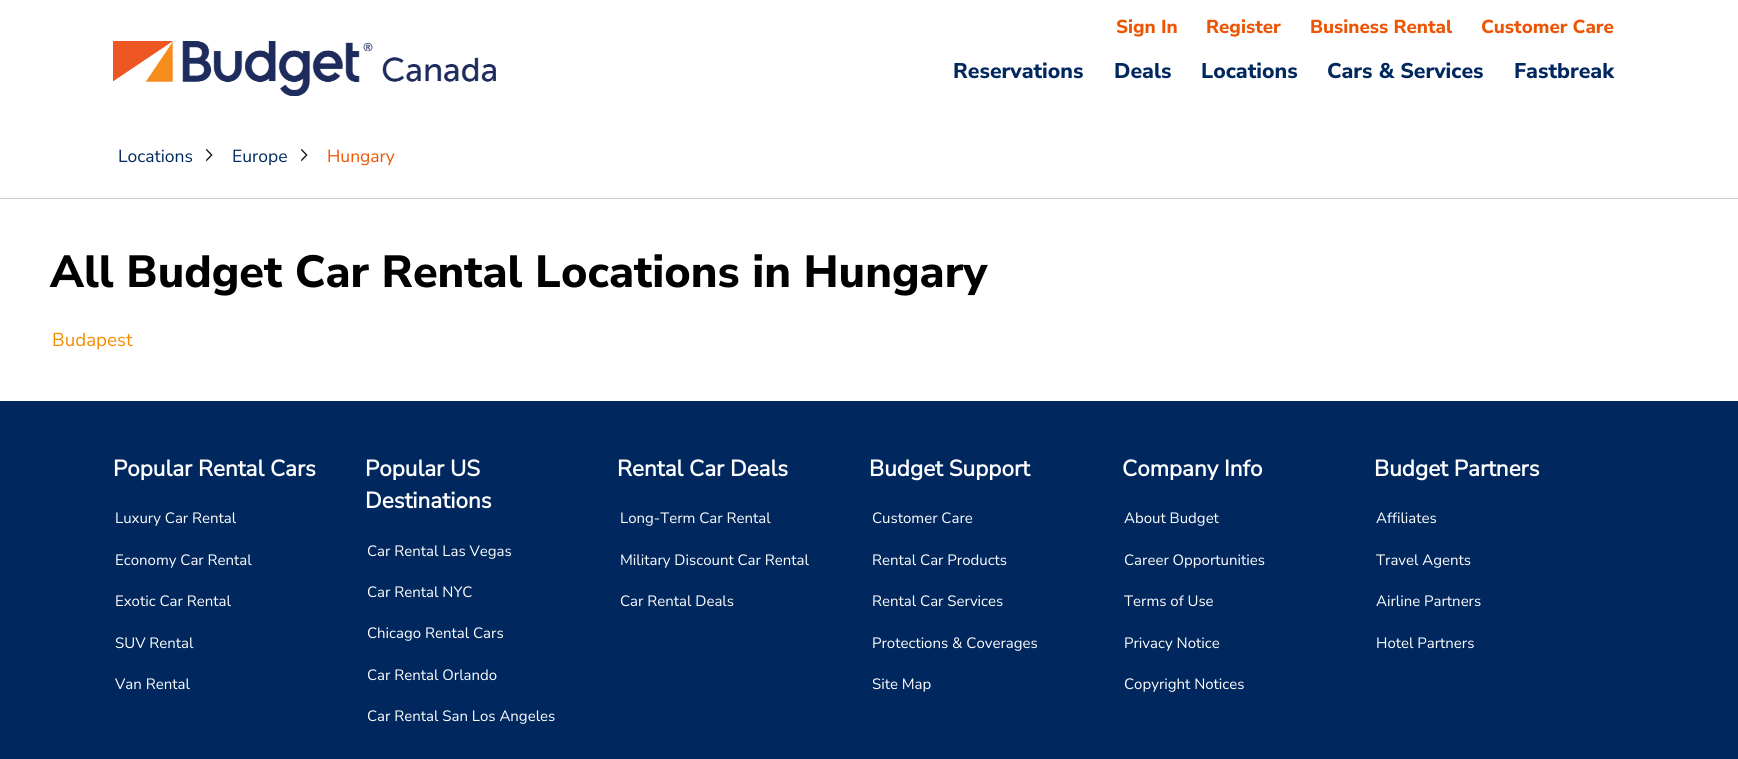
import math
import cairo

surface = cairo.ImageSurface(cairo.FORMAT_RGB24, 1738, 759)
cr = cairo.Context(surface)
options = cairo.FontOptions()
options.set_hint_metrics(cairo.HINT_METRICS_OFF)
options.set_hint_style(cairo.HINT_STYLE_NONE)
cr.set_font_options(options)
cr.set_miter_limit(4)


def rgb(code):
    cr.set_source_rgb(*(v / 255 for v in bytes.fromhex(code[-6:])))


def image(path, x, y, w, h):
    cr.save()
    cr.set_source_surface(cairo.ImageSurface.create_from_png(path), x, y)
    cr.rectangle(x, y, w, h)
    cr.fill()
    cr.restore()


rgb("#ffffff")
cr.paint()
image("img/1.png", 113, 41, 383, 55)
rgb("#cccccc")
cr.rectangle(0, 198, 1738, 1)
cr.fill()
image("img/2.png", 206, 148, 7, 14)
image("img/2.png", 301, 148, 7, 14)
rgb("#00285f")
cr.rectangle(0, 401, 1738, 358)
cr.fill()
cr.select_font_face("Nunito Sans ExtraBold")
cr.set_font_size(18.75)
rgb("#ed5505")
for x, y, s in [
    (1116, 33, "Sign In"),
    (1206, 33, "Register"),
    (1310, 33, "Business Rental"),
    (1481, 33, "Customer Care"),
]:
    cr.move_to(x, y)
    cr.show_text(s)
cr.set_font_size(21.25)
rgb("#00285f")
for x, y, s in [
    (953, 78, "Reservations"),
    (1114, 78, "Deals"),
    (1201, 78, "Locations"),
    (1327, 78, "Cars & Services"),
    (1514, 78, "Fastbreak"),
]:
    cr.move_to(x, y)
    cr.show_text(s)
cr.select_font_face("Nunito Sans")
cr.set_font_size(17.5)
cr.move_to(118, 162)
cr.show_text("Locations")
cr.move_to(232, 162)
cr.show_text("Europe")
rgb("#ed5505")
cr.move_to(327, 162)
cr.show_text("Hungary")
cr.select_font_face("Nunito Sans ExtraBold")
cr.set_font_size(45)
rgb("#000000")
cr.move_to(50, 287)
cr.show_text("All Budget Car Rental Locations in Hungary")
cr.select_font_face("Nunito Sans")
cr.set_font_size(18.75)
rgb("#f78b00")
cr.move_to(52, 346)
cr.show_text("Budapest")
cr.select_font_face("Nunito Sans", cairo.FONT_SLANT_NORMAL, cairo.FONT_WEIGHT_BOLD)
cr.set_font_size(22.5)
rgb("#ffffff")
cr.move_to(113, 476)
cr.show_text("Popular Rental Cars")
cr.select_font_face("Nunito Sans")
cr.set_font_size(15)
for x, y, s in [
    (115, 523, "Luxury Car Rental"),
    (115, 565, "Economy Car Rental"),
    (115, 606, "Exotic Car Rental"),
    (115, 648, "SUV Rental"),
    (115, 689, "Van Rental"),
]:
    cr.move_to(x, y)
    cr.show_text(s)
cr.select_font_face("Nunito Sans", cairo.FONT_SLANT_NORMAL, cairo.FONT_WEIGHT_BOLD)
cr.set_font_size(22.5)
cr.move_to(365, 476)
cr.show_text("Popular US")
cr.move_to(365, 508)
cr.show_text("Destinations")
cr.select_font_face("Nunito Sans")
cr.set_font_size(15)
for x, y, s in [
    (367, 556, "Car Rental Las Vegas"),
    (367, 597, "Car Rental NYC"),
    (367, 638, "Chicago Rental Cars"),
    (367, 680, "Car Rental Orlando"),
    (367, 721, "Car Rental San Los Angeles"),
]:
    cr.move_to(x, y)
    cr.show_text(s)
cr.select_font_face("Nunito Sans", cairo.FONT_SLANT_NORMAL, cairo.FONT_WEIGHT_BOLD)
cr.set_font_size(22.5)
cr.move_to(617, 476)
cr.show_text("Rental Car Deals")
cr.select_font_face("Nunito Sans")
cr.set_font_size(15)
for x, y, s in [
    (620, 523, "Long-Term Car Rental"),
    (620, 565, "Military Discount Car Rental"),
    (620, 606, "Car Rental Deals"),
]:
    cr.move_to(x, y)
    cr.show_text(s)
cr.select_font_face("Nunito Sans", cairo.FONT_SLANT_NORMAL, cairo.FONT_WEIGHT_BOLD)
cr.set_font_size(22.5)
cr.move_to(869, 476)
cr.show_text("Budget Support")
cr.select_font_face("Nunito Sans")
cr.set_font_size(15)
for x, y, s in [
    (872, 523, "Customer Care"),
    (872, 565, "Rental Car Products"),
    (872, 606, "Rental Car Services"),
    (872, 648, "Protections & Coverages"),
    (872, 689, "Site Map"),
]:
    cr.move_to(x, y)
    cr.show_text(s)
cr.select_font_face("Nunito Sans", cairo.FONT_SLANT_NORMAL, cairo.FONT_WEIGHT_BOLD)
cr.set_font_size(22.5)
cr.move_to(1122, 476)
cr.show_text("Company Info")
cr.select_font_face("Nunito Sans")
cr.set_font_size(15)
for x, y, s in [
    (1124, 523, "About Budget"),
    (1124, 565, "Career Opportunities"),
    (1124, 606, "Terms of Use"),
    (1124, 648, "Privacy Notice"),
    (1124, 689, "Copyright Notices"),
]:
    cr.move_to(x, y)
    cr.show_text(s)
cr.select_font_face("Nunito Sans", cairo.FONT_SLANT_NORMAL, cairo.FONT_WEIGHT_BOLD)
cr.set_font_size(22.5)
cr.move_to(1374, 476)
cr.show_text("Budget Partners")
cr.select_font_face("Nunito Sans")
cr.set_font_size(15)
for x, y, s in [
    (1376, 523, "Affiliates"),
    (1376, 565, "Travel Agents"),
    (1376, 606, "Airline Partners"),
    (1376, 648, "Hotel Partners"),
]:
    cr.move_to(x, y)
    cr.show_text(s)
surface.write_to_png("page.png")
